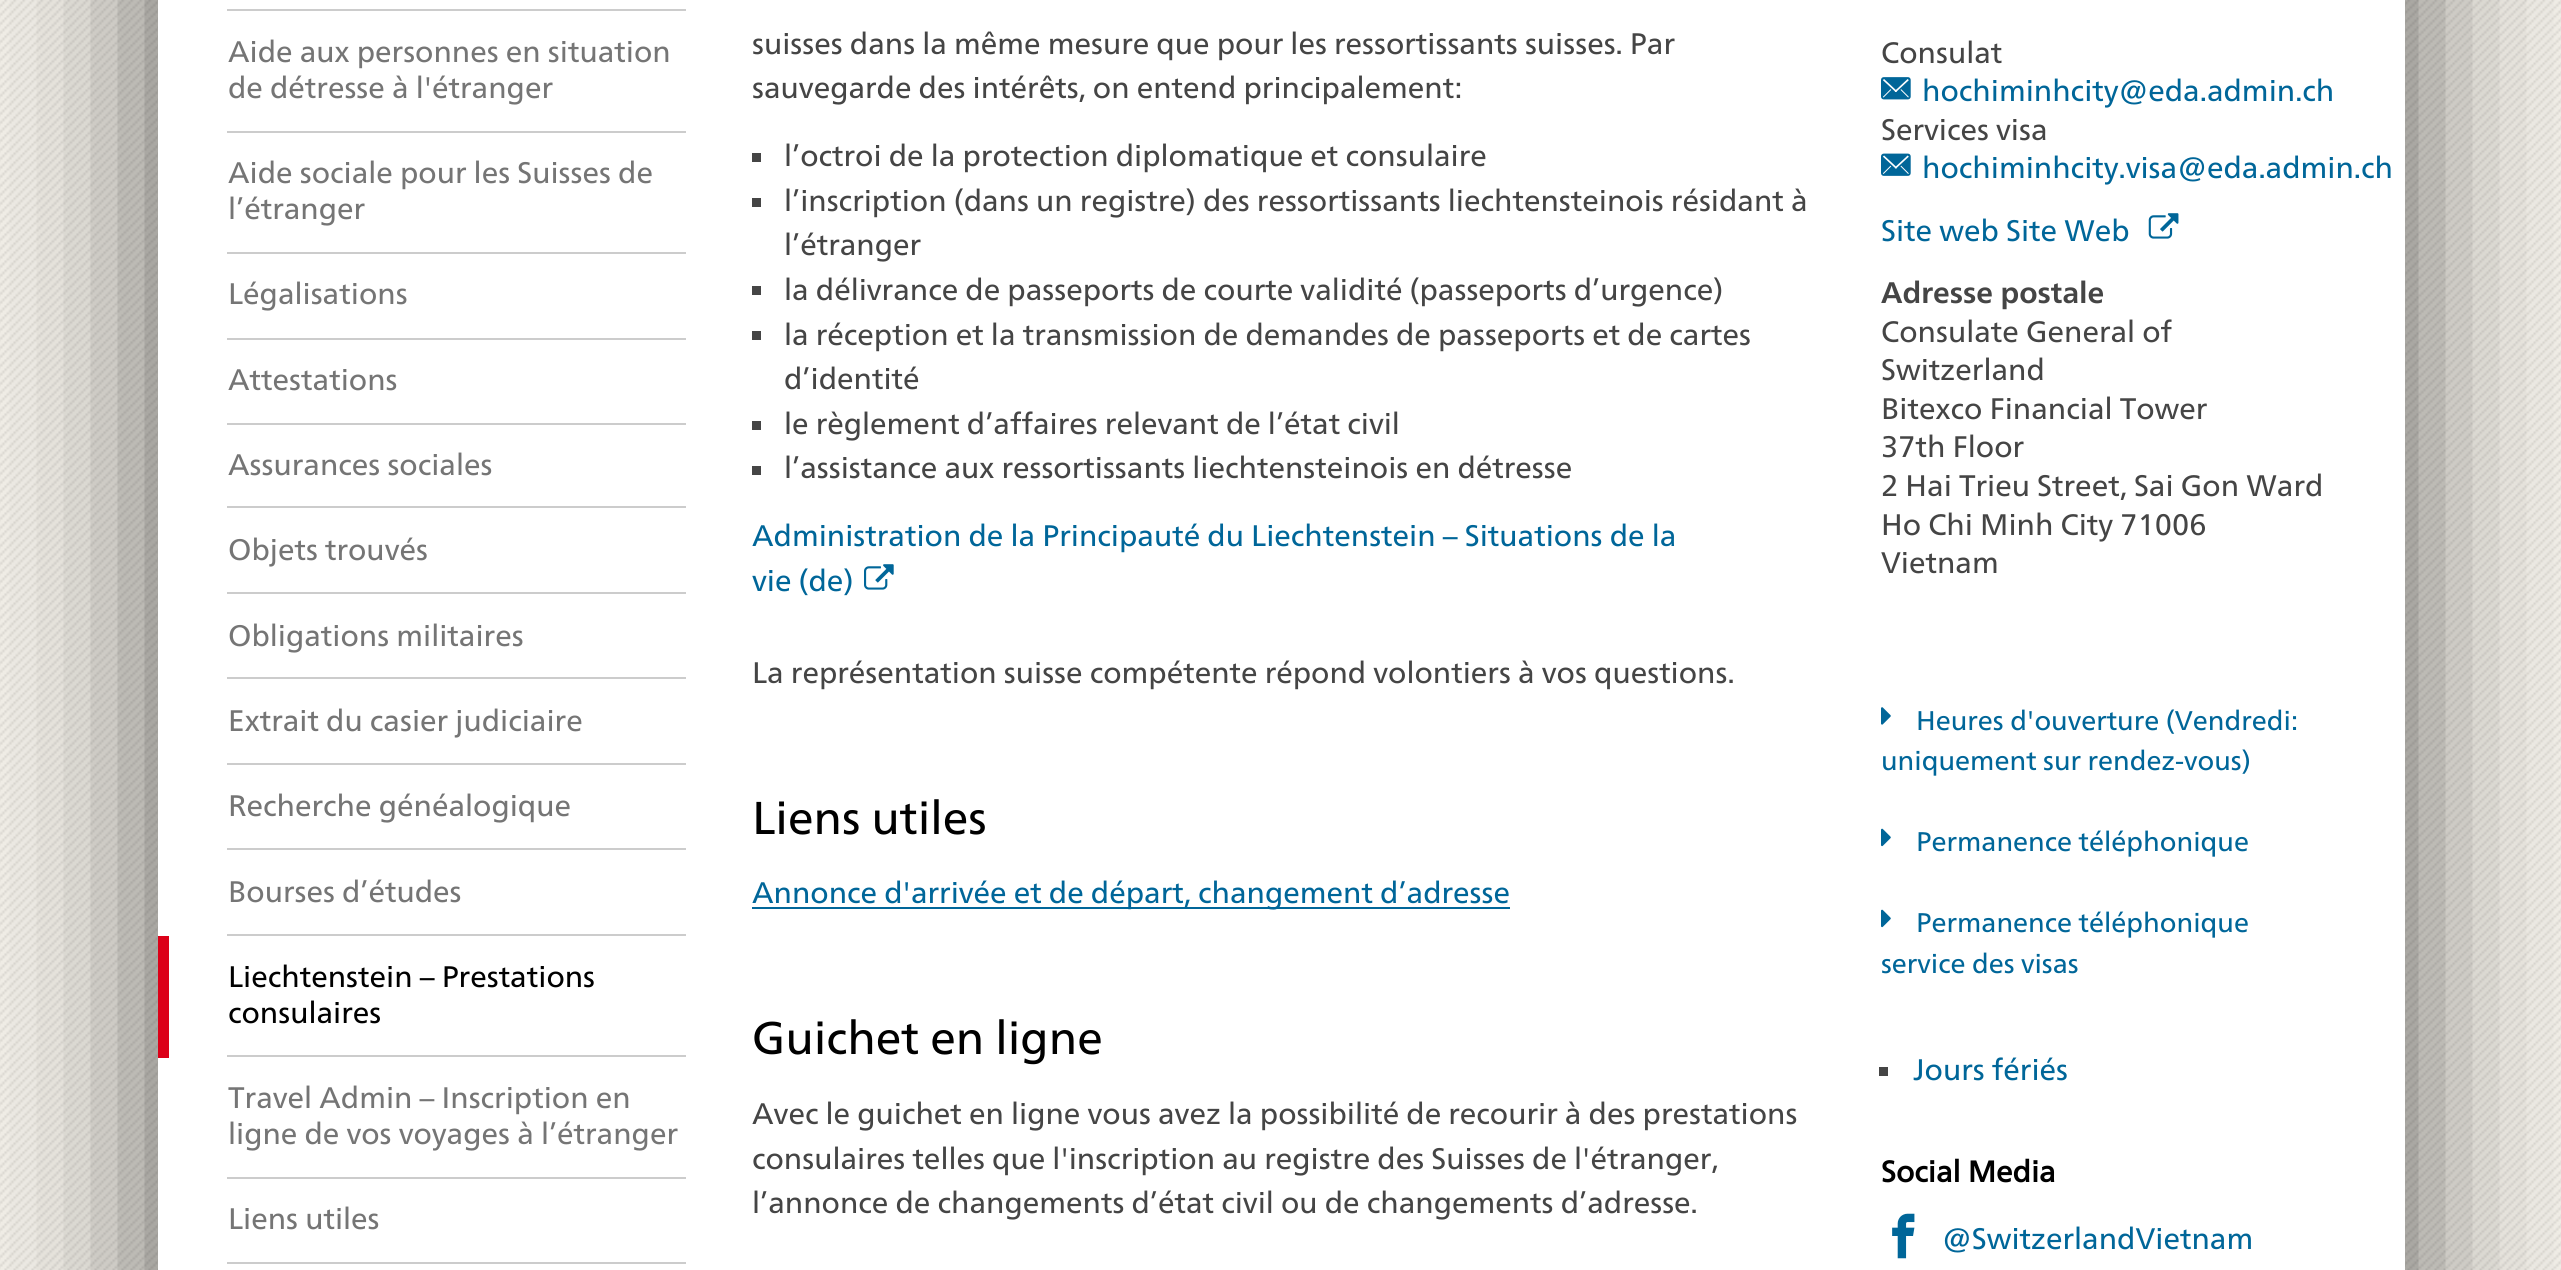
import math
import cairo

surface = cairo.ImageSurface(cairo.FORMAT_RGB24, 2561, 1270)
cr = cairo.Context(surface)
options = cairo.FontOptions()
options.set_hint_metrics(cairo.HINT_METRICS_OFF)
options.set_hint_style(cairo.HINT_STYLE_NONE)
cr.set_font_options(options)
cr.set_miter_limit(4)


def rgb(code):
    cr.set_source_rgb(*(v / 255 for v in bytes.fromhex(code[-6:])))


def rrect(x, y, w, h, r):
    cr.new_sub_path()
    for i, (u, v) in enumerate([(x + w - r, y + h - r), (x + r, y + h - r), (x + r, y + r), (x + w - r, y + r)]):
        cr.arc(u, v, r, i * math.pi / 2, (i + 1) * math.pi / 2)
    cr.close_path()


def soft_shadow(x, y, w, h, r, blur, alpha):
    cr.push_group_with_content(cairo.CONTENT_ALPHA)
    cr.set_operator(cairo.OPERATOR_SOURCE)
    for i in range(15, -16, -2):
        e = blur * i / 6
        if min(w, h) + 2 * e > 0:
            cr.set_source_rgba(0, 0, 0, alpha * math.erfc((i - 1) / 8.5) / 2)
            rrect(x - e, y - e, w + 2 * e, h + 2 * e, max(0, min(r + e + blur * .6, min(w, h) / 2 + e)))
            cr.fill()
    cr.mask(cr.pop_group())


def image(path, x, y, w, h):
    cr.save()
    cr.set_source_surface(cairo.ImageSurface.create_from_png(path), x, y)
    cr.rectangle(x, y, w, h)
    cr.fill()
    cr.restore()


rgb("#ffffff")
cr.paint()
image("img/1.png", 0, 0, 2561, 1270)
rgb("#000000")
soft_shadow(158, -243, 2247, 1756, 0, 81, 0.6)
for x, y, w, h, color in [
    (158, 0, 2247, 1270, "#ffffff"),
    (227, 9, 459, 2, "#cccccc"),
    (227, 131, 459, 2, "#cccccc"),
    (227, 252, 459, 2, "#cccccc"),
    (227, 338, 459, 2, "#cccccc"),
    (227, 423, 459, 2, "#cccccc"),
    (227, 506, 459, 2, "#cccccc"),
    (227, 592, 459, 2, "#cccccc"),
    (227, 677, 459, 2, "#cccccc"),
    (227, 763, 459, 2, "#cccccc"),
    (227, 848, 459, 2, "#cccccc"),
    (227, 934, 459, 2, "#cccccc"),
    (158, 936, 11, 122, "#dc0018"),
    (227, 1055, 459, 2, "#cccccc"),
    (227, 1177, 459, 2, "#cccccc"),
    (227, 1262, 459, 2, "#cccccc"),
    (752, 153, 9, 9, "#454545"),
    (752, 198, 9, 9, "#454545"),
    (752, 286, 9, 9, "#454545"),
    (752, 331, 9, 9, "#454545"),
    (752, 421, 9, 9, "#454545"),
    (752, 466, 9, 9, "#454545"),
]:
    rgb(color)
    cr.rectangle(x, y, w, h)
    cr.fill()
image("img/2.png", 864, 564, 30, 26)
rgb("#006699")
cr.rectangle(752, 907, 758, 2)
cr.fill()
image("img/3.png", 1881, 77, 30, 23)
image("img/4.png", 1881, 153, 30, 23)
image("img/5.png", 2148, 213, 31, 26)
image("img/6.png", 1881, 707, 10, 18)
image("img/7.png", 1881, 828, 10, 19)
image("img/7.png", 1881, 909, 10, 19)
rgb("#454545")
cr.rectangle(1879, 1067, 9, 9)
cr.fill()
image("img/8.png", 1892, 1213, 23, 46)
cr.select_font_face("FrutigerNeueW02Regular")
cr.set_font_size(29.7)
rgb("#757575")
for x, y, s in [
    (228, 62, "Aide aux personnes en situation"),
    (228, 98, "de détresse à l'étranger"),
    (228, 183, "Aide sociale pour les Suisses de"),
    (228, 219, "l’étranger"),
    (228, 304, "Légalisations"),
    (228, 390, "Attestations"),
    (228, 475, "Assurances sociales"),
    (228, 560, "Objets trouvés"),
    (228, 646, "Obligations militaires"),
    (228, 731, "Extrait du casier judiciaire"),
    (228, 816, "Recherche généalogique"),
    (228, 902, "Bourses d’études"),
]:
    cr.move_to(x, y)
    cr.show_text(s)
rgb("#000000")
cr.move_to(228, 987)
cr.show_text("Liechtenstein – Prestations")
cr.move_to(228, 1023)
cr.show_text("consulaires")
rgb("#757575")
for x, y, s in [
    (228, 1108, "Travel Admin – Inscription en"),
    (228, 1144, "ligne de vos voyages à l’étranger"),
    (228, 1229, "Liens utiles"),
]:
    cr.move_to(x, y)
    cr.show_text(s)
rgb("#454545")
for x, y, s in [
    (752, 54, "suisses dans la même mesure que pour les ressortissants suisses. Par"),
    (752, 98, "sauvegarde des intérêts, on entend principalement:"),
    (784, 166, "l’octroi de la protection diplomatique et consulaire"),
    (784, 211, "l’inscription (dans un registre) des ressortissants liechtensteinois résidant à"),
    (784, 255, "l’étranger"),
    (784, 300, "la délivrance de passeports de courte validité (passeports d’urgence)"),
    (784, 345, "la réception et la transmission de demandes de passeports et de cartes"),
    (784, 389, "d’identité"),
    (784, 434, "le règlement d’affaires relevant de l’état civil"),
    (784, 478, "l’assistance aux ressortissants liechtensteinois en détresse"),
]:
    cr.move_to(x, y)
    cr.show_text(s)
rgb("#006699")
cr.move_to(752, 546)
cr.show_text("Administration de la Principauté du Liechtenstein – Situations de la")
cr.move_to(752, 591)
cr.show_text("vie (de)")
rgb("#454545")
cr.move_to(752, 683)
cr.show_text("La représentation suisse compétente répond volontiers à vos questions.")
cr.set_font_size(46)
rgb("#000000")
cr.move_to(752, 834)
cr.show_text("Liens utiles")
cr.set_font_size(29.7)
rgb("#006699")
cr.move_to(752, 903)
cr.show_text("Annonce d'arrivée et de départ, changement d’adresse")
cr.set_font_size(46)
rgb("#000000")
cr.move_to(752, 1054)
cr.show_text("Guichet en ligne")
cr.set_font_size(29.7)
rgb("#454545")
for x, y, s in [
    (752, 1124, "Avec le guichet en ligne vous avez la possibilité de recourir à des prestations"),
    (752, 1169, "consulaires telles que l'inscription au registre des Suisses de l'étranger,"),
    (752, 1213, "l’annonce de changements d’état civil ou de changements d’adresse."),
    (1881, 63, "Consulat"),
]:
    cr.move_to(x, y)
    cr.show_text(s)
rgb("#006699")
cr.move_to(1922, 101)
cr.show_text("hochiminhcity@eda.admin.ch")
rgb("#454545")
cr.move_to(1881, 140)
cr.show_text("Services visa")
rgb("#006699")
cr.move_to(1922, 178)
cr.show_text("hochiminhcity.visa@eda.admin.ch")
cr.move_to(1881, 241)
cr.show_text("Site web Site Web")
cr.select_font_face("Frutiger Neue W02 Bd", cairo.FONT_SLANT_NORMAL, cairo.FONT_WEIGHT_BOLD)
rgb("#454545")
cr.move_to(1881, 303)
cr.show_text("Adresse postale")
cr.select_font_face("FrutigerNeueW02Regular")
for x, y, s in [
    (1881, 342, "Consulate General of"),
    (1881, 380, "Switzerland"),
    (1881, 419, "Bitexco Financial Tower"),
    (1881, 457, "37th Floor"),
    (1881, 496, "2 Hai Trieu Street, Sai Gon Ward"),
    (1881, 535, "Ho Chi Minh City 71006"),
    (1881, 573, "Vietnam"),
]:
    cr.move_to(x, y)
    cr.show_text(s)
cr.set_font_size(27)
rgb("#006699")
for x, y, s in [
    (1916, 730, "Heures d'ouverture (Vendredi:"),
    (1881, 770, "uniquement sur rendez-vous)"),
    (1916, 851, "Permanence téléphonique"),
    (1916, 932, "Permanence téléphonique"),
    (1881, 973, "service des visas"),
]:
    cr.move_to(x, y)
    cr.show_text(s)
cr.set_font_size(29.7)
cr.move_to(1913, 1080)
cr.show_text("Jours fériés")
cr.select_font_face("FrutigerNeueW02Regular", cairo.FONT_SLANT_NORMAL, cairo.FONT_WEIGHT_BOLD)
rgb("#000000")
cr.move_to(1881, 1182)
cr.show_text("Social Media")
cr.select_font_face("FrutigerNeueW02Regular")
rgb("#006699")
cr.move_to(1942, 1249)
cr.show_text("@SwitzerlandVietnam")
surface.write_to_png("page.png")
